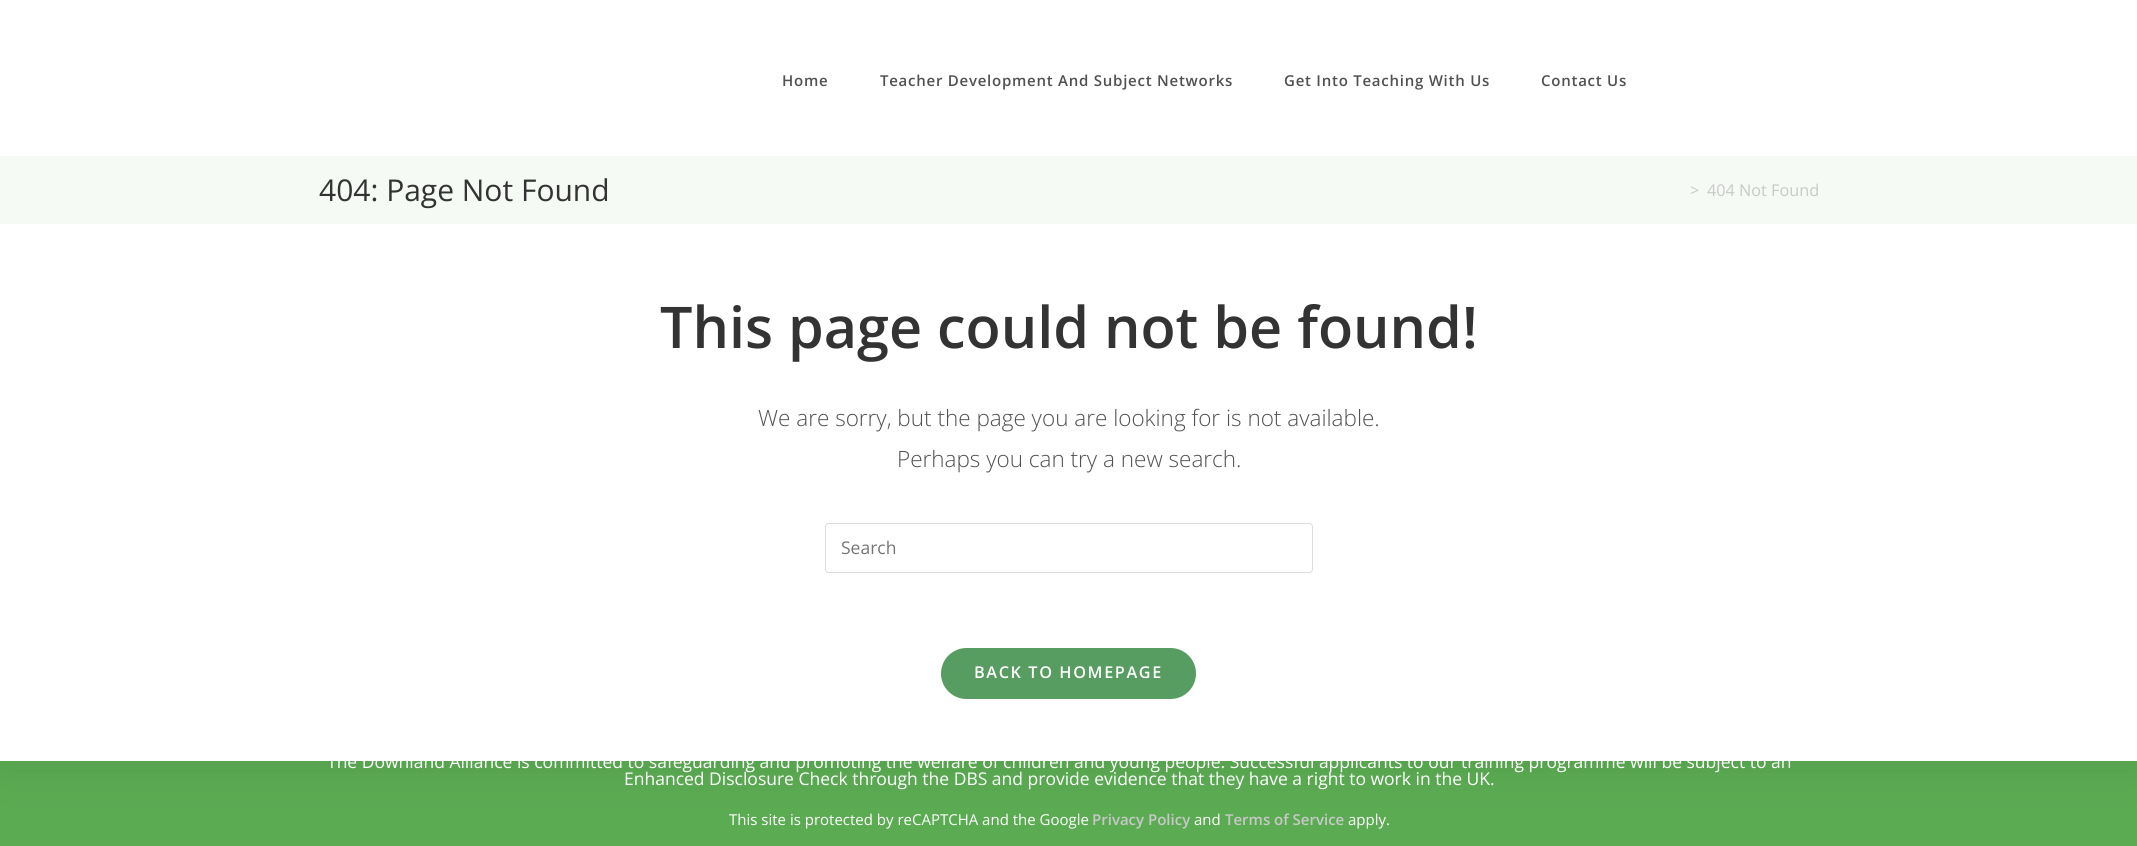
import math
import cairo

surface = cairo.ImageSurface(cairo.FORMAT_RGB24, 2137, 846)
cr = cairo.Context(surface)
options = cairo.FontOptions()
options.set_hint_metrics(cairo.HINT_METRICS_OFF)
options.set_hint_style(cairo.HINT_STYLE_NONE)
cr.set_font_options(options)
cr.set_miter_limit(4)


def rgb(code):
    cr.set_source_rgb(*(v / 255 for v in bytes.fromhex(code[-6:])))


def tracked(x, y, s, letter, word):
    cr.move_to(x, y)
    for ch in s:
        cr.show_text(ch)
        cr.rel_move_to(letter + word * (ch == ' '), 0)


def rrect(x, y, w, h, r):
    cr.new_sub_path()
    for i, (u, v) in enumerate([(x + w - r, y + h - r), (x + r, y + h - r), (x + r, y + r), (x + w - r, y + r)]):
        cr.arc(u, v, r, i * math.pi / 2, (i + 1) * math.pi / 2)
    cr.close_path()


def soft_shadow(x, y, w, h, r, blur, alpha):
    cr.push_group_with_content(cairo.CONTENT_ALPHA)
    cr.set_operator(cairo.OPERATOR_SOURCE)
    for i in range(15, -16, -2):
        e = blur * i / 6
        if min(w, h) + 2 * e > 0:
            cr.set_source_rgba(0, 0, 0, alpha * math.erfc((i - 1) / 8.5) / 2)
            rrect(x - e, y - e, w + 2 * e, h + 2 * e, max(0, min(r + e + blur * .6, min(w, h) / 2 + e)))
            cr.fill()
    cr.mask(cr.pop_group())


rgb("#5bab53")
cr.paint()
rgb("#000000")
soft_shadow(0, 156, 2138, 605, 0, 25, 0.1)
for x, y, w, h, color in [
    (0, 0, 2137, 156, "#ffffff"),
    (0, 224, 2137, 537, "#ffffff"),
    (0, 156, 2137, 68, "#f6faf5"),
]:
    rgb(color)
    cr.rectangle(x, y, w, h)
    cr.fill()
rrect(825.5, 523.5, 487, 49, 3.5)
rgb("#dddddd")
cr.set_line_width(1)
cr.stroke()
rgb("#579c60")
rrect(941, 648, 255, 51, 25.5)
cr.fill()
cr.select_font_face("Open Sans SemiBold")
cr.set_font_size(15)
rgb("#515151")
for x, y, s in [
    (782, 86, "Home"),
    (880, 86, "Teacher Development And Subject Networks"),
    (1284, 86, "Get Into Teaching With Us"),
    (1541, 86, "Contact Us"),
]:
    tracked(x, y, s, 0.75, 0)
cr.select_font_face("Open Sans")
cr.set_font_size(30)
rgb("#333333")
cr.move_to(319, 201)
cr.show_text("404: Page Not Found")
cr.set_font_size(16.25)
rgb("#c8c8c8")
cr.move_to(1690, 196)
cr.show_text(">")
cr.move_to(1707, 196)
cr.show_text("404 Not Found")
cr.select_font_face("Open Sans SemiBold")
cr.set_font_size(57.5)
rgb("#333333")
cr.move_to(660, 348)
cr.show_text("This page could not be found!")
cr.select_font_face("Open Sans Light")
cr.set_font_size(22.5)
rgb("#515151")
cr.move_to(758, 426)
cr.show_text("We are sorry, but the page you are looking for is not available.")
cr.move_to(897, 467)
cr.show_text("Perhaps you can try a new search.")
cr.select_font_face("Open Sans")
cr.set_font_size(17.5)
rgb("#757575")
cr.move_to(841, 554)
cr.show_text("Search")
cr.select_font_face("Open Sans SemiBold")
cr.set_font_size(16.25)
rgb("#ffffff")
tracked(974, 678, "BACK TO HOMEPAGE", 1.6, 0)
cr.select_font_face("Open Sans")
cr.set_font_size(17.5)
cr.move_to(327, 768)
cr.show_text("The Downland Alliance is committed to safeguarding and promoting the welfare of children and young people. Successful applicants to our training programme will be subject to an")
cr.move_to(624, 785)
cr.show_text("Enhanced Disclosure Check through the DBS and provide evidence that they have a right to work in the UK.")
cr.set_font_size(15)
cr.move_to(729, 825)
cr.show_text("This site is protected by reCAPTCHA and the Google")
cr.select_font_face("Open Sans SemiBold")
rgb("#c8c8c8")
cr.move_to(1092, 825)
cr.show_text("Privacy Policy")
cr.select_font_face("Open Sans")
rgb("#ffffff")
cr.move_to(1194, 825)
cr.show_text("and")
cr.select_font_face("Open Sans SemiBold")
rgb("#c8c8c8")
cr.move_to(1225, 825)
cr.show_text("Terms of Service")
cr.select_font_face("Open Sans")
rgb("#ffffff")
cr.move_to(1348, 825)
cr.show_text("apply.")
surface.write_to_png("page.png")
